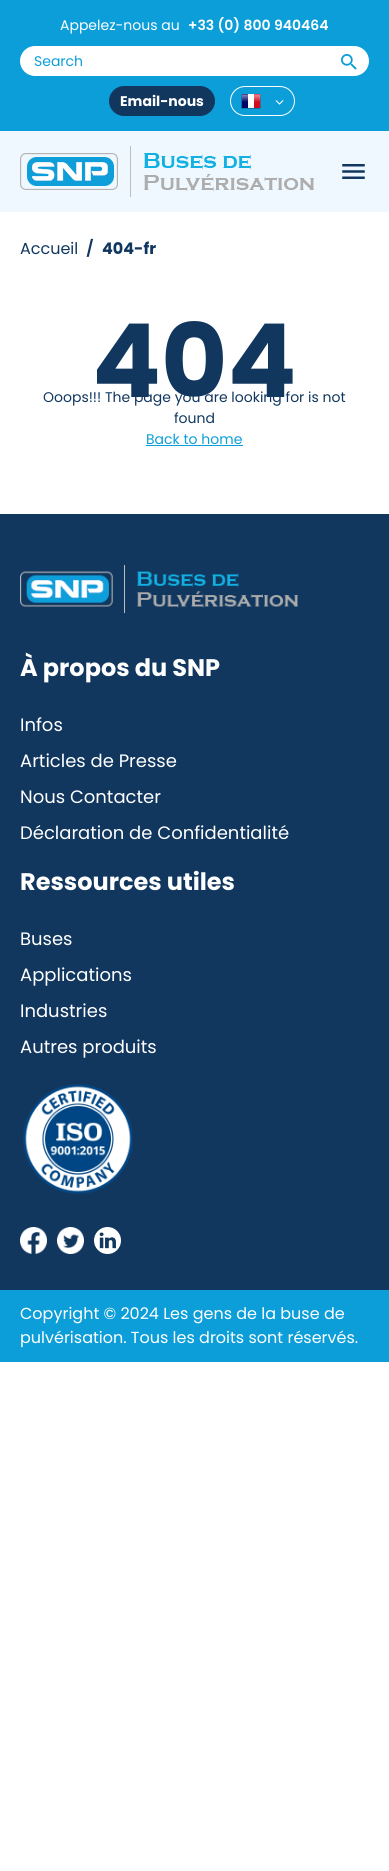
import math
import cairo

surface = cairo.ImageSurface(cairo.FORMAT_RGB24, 389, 1871)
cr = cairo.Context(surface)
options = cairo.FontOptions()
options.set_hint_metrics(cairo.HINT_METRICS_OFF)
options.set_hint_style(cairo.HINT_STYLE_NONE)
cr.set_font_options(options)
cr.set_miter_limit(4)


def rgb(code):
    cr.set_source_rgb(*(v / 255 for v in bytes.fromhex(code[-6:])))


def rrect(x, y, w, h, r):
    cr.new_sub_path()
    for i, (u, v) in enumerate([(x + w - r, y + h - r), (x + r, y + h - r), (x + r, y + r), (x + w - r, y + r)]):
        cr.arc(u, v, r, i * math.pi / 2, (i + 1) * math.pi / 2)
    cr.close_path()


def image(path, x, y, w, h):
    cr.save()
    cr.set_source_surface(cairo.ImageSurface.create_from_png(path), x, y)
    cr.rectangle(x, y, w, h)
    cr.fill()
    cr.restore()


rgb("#ffffff")
cr.paint()
rgb("#0c9ed9")
cr.rectangle(0, 0, 389, 131)
cr.fill()
rgb("#ffffff")
rrect(20, 46, 349, 30, 15)
cr.fill()
image("img/1.png", 341, 54, 16, 16)
rgb("#11375f")
rrect(109.5, 86.5, 105, 29, 14.5)
cr.fill_preserve()
cr.set_line_width(1)
cr.stroke()
image("img/2.png", 241, 93, 20, 16)
rrect(230.5, 86.5, 64, 29, 14.5)
rgb("#ffffff")
cr.stroke()
image("img/3.png", 275, 100, 9, 5)
rgb("#eff7ff")
cr.rectangle(0, 131, 389, 81)
cr.fill()
image("img/4.png", 20, 146, 294, 51)
image("img/5.png", 342, 164, 23, 15)
rgb("#0c9ed9")
cr.rectangle(146, 445, 97, 1)
cr.fill()
rgb("#11375f")
cr.rectangle(0, 514, 389, 776)
cr.fill()
image("img/6.png", 20, 565, 278, 48)
image("img/7.png", 23, 1084, 110, 110)
image("img/8.png", 20, 1227, 27, 27)
image("img/9.png", 57, 1227, 27, 27)
image("img/10.png", 94, 1227, 27, 27)
rgb("#0c9ed9")
cr.rectangle(0, 1290, 389, 72)
cr.fill()
cr.select_font_face("Poppins")
cr.set_font_size(14)
rgb("#ffffff")
cr.move_to(60, 30)
cr.show_text("Appelez-nous au")
cr.select_font_face("Poppins SemiBold")
cr.move_to(188, 30)
cr.show_text("+33 (0) 800 940464")
cr.select_font_face("Poppins")
rgb("#0c9ed9")
cr.move_to(34, 66)
cr.show_text("Search")
cr.select_font_face("Poppins", cairo.FONT_SLANT_NORMAL, cairo.FONT_WEIGHT_BOLD)
rgb("#ffffff")
cr.move_to(120, 106)
cr.show_text("Email-nous")
cr.select_font_face("Poppins")
cr.set_font_size(16)
rgb("#11375f")
cr.move_to(20, 254)
cr.show_text("Accueil")
cr.select_font_face("Poppins SemiBold")
cr.move_to(86, 254)
cr.show_text("/")
cr.select_font_face("Poppins", cairo.FONT_SLANT_NORMAL, cairo.FONT_WEIGHT_BOLD)
cr.move_to(102, 254)
cr.show_text("404-fr")
cr.set_font_size(102)
cr.move_to(92, 397)
cr.show_text("404")
cr.select_font_face("Poppins")
cr.set_font_size(14)
cr.move_to(43, 402)
cr.show_text("Ooops!!! The page you are looking for is not")
cr.move_to(174, 423)
cr.show_text("found")
rgb("#0c9ed9")
cr.move_to(146, 444)
cr.show_text("Back to home")
cr.select_font_face("Poppins", cairo.FONT_SLANT_NORMAL, cairo.FONT_WEIGHT_BOLD)
cr.set_font_size(24)
rgb("#ffffff")
cr.move_to(20, 676)
cr.show_text("À propos du SNP")
cr.select_font_face("Poppins")
cr.set_font_size(18)
for x, y, s in [
    (20, 731, "Infos"),
    (20, 767, "Articles de Presse"),
    (20, 803, "Nous Contacter"),
    (20, 839, "Déclaration de Confidentialité"),
]:
    cr.move_to(x, y)
    cr.show_text(s)
cr.select_font_face("Poppins", cairo.FONT_SLANT_NORMAL, cairo.FONT_WEIGHT_BOLD)
cr.set_font_size(24)
cr.move_to(20, 890)
cr.show_text("Ressources utiles")
cr.select_font_face("Poppins")
cr.set_font_size(18)
for x, y, s in [
    (20, 945, "Buses"),
    (20, 981, "Applications"),
    (20, 1017, "Industries"),
    (20, 1053, "Autres produits"),
]:
    cr.move_to(x, y)
    cr.show_text(s)
cr.set_font_size(16)
cr.move_to(20, 1319)
cr.show_text("Copyright © 2024 Les gens de la buse de")
cr.move_to(20, 1343)
cr.show_text("pulvérisation. Tous les droits sont réservés.")
surface.write_to_png("page.png")
